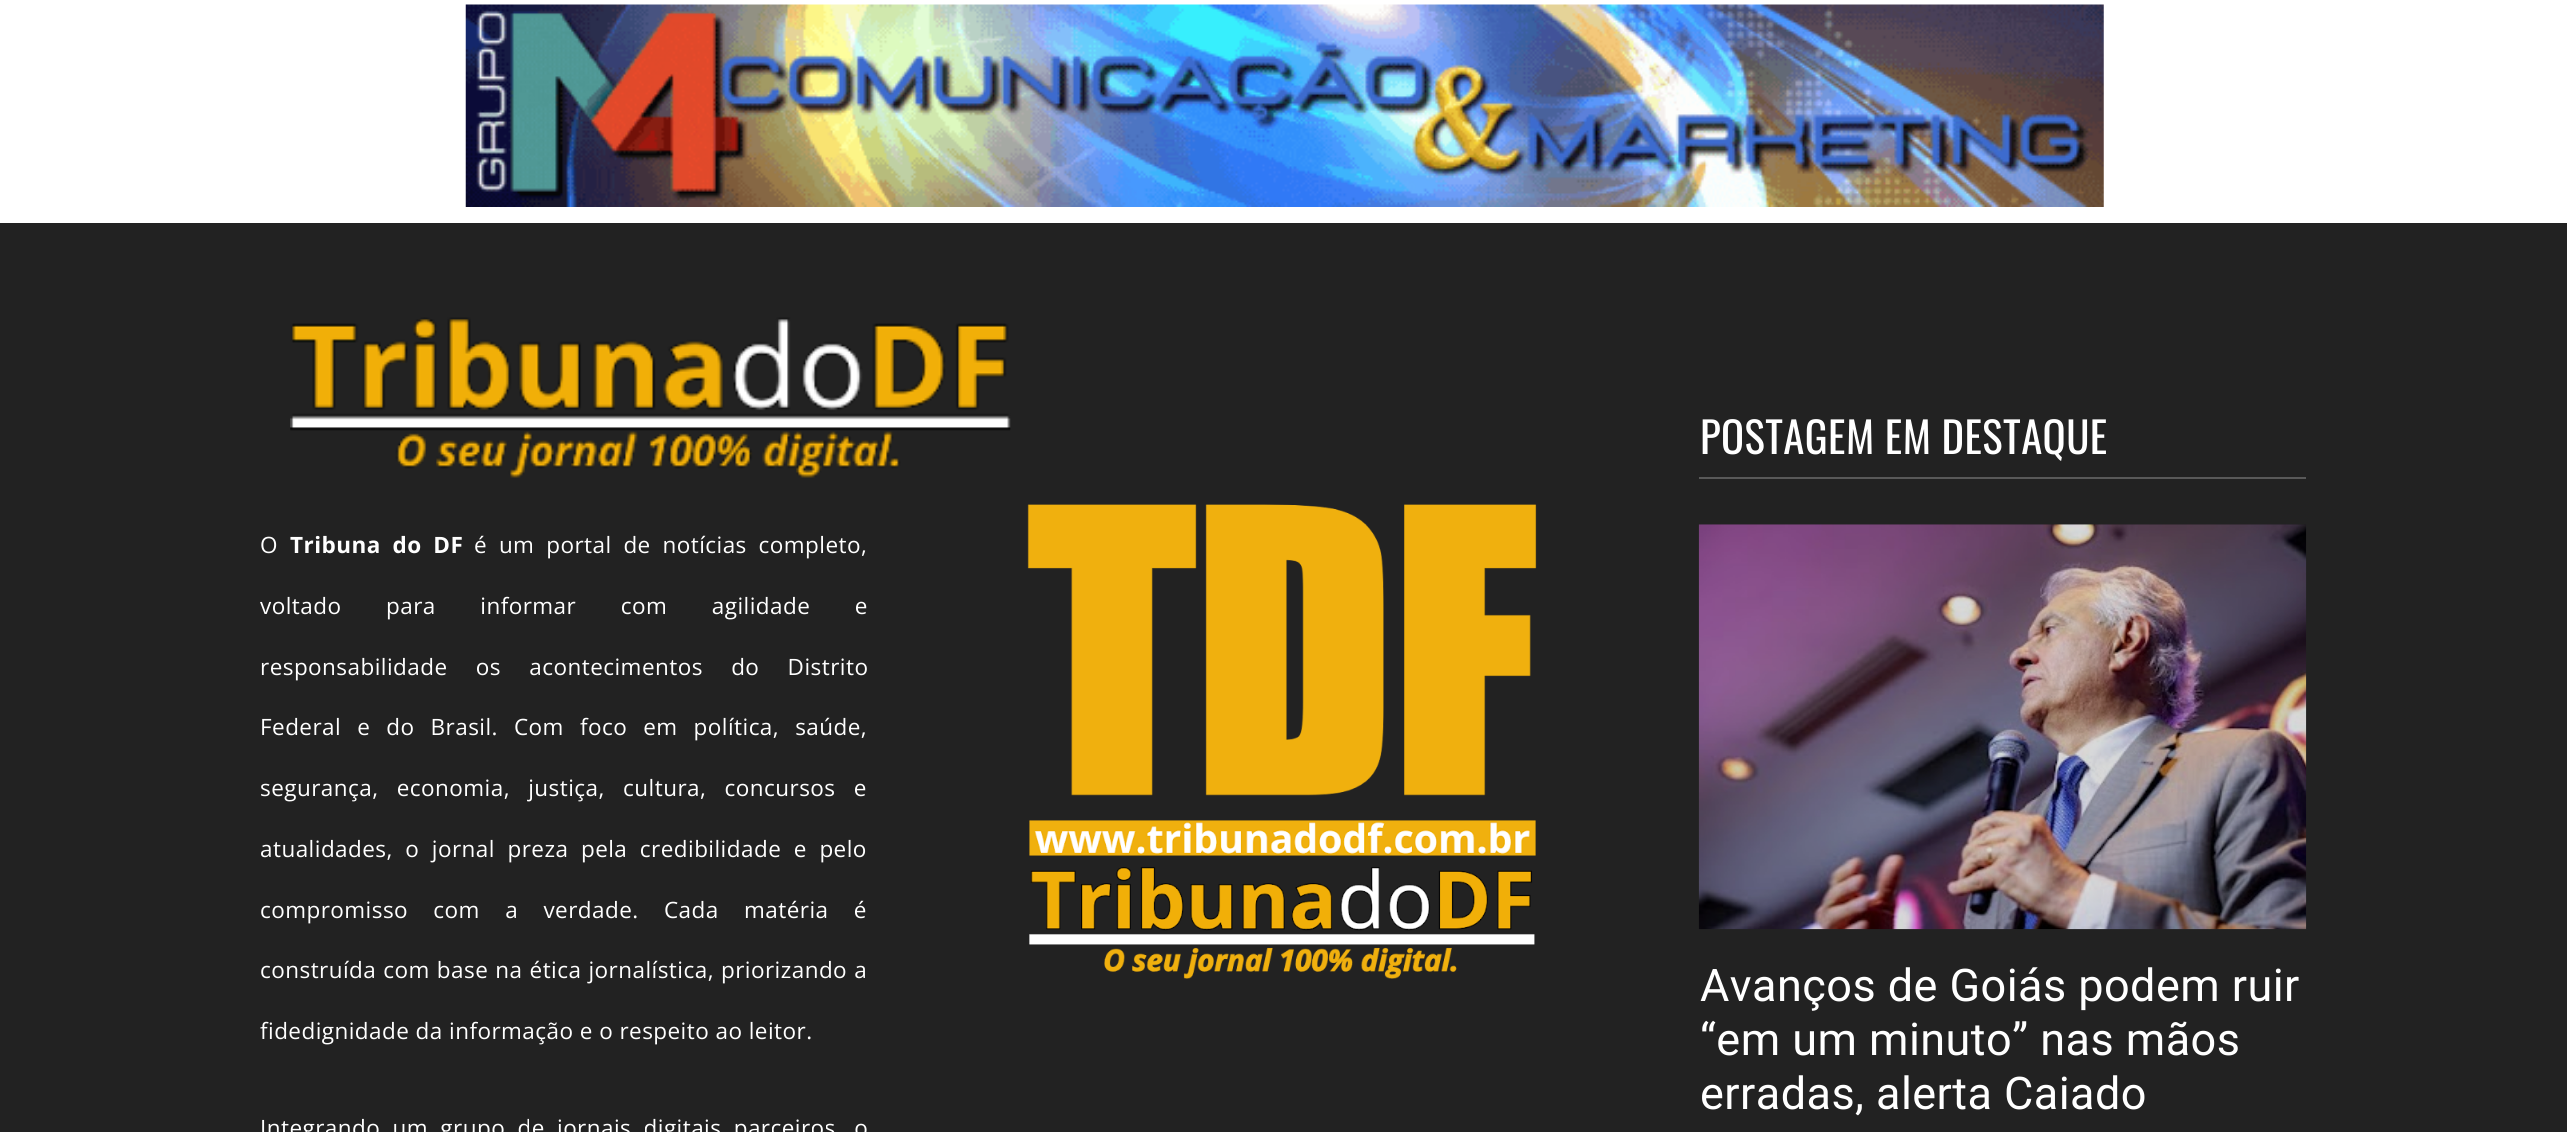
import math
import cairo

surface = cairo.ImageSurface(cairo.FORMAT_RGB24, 2567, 1132)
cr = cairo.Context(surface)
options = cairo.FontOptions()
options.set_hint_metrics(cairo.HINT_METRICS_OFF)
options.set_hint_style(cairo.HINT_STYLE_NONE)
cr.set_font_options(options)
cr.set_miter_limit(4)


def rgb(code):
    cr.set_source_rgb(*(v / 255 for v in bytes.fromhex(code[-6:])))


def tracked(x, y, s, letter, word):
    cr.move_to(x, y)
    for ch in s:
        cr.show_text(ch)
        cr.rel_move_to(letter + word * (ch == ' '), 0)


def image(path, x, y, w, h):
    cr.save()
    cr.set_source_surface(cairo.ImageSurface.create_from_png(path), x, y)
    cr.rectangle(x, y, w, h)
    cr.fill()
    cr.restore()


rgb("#ffffff")
cr.paint()
image("img/1.png", 465, 4, 1639, 203)
rgb("#222222")
cr.rectangle(0, 223, 2567, 909)
cr.fill()
rgb("#1d1d1d")
cr.rectangle(1699, 524, 607, 1)
cr.fill()
image("img/2.png", 290, 317, 721, 161)
image("img/3.png", 1027, 504, 510, 475)
rgb("#595959")
cr.rectangle(1699, 477, 607, 2)
cr.fill()
image("img/4.png", 1698, 524, 609, 406)
cr.select_font_face("Open Sans")
cr.set_font_size(22.5)
rgb("#ffffff")
tracked(260, 553, "O", 0.45, 0)
cr.select_font_face("Open Sans", cairo.FONT_SLANT_NORMAL, cairo.FONT_WEIGHT_BOLD)
tracked(290, 553, "Tribuna do DF", 0.45, 5.5)
cr.select_font_face("Open Sans")
tracked(474, 553, "é um portal de notícias completo,", 0.45, 5.5)
tracked(260, 614, "voltado para informar com agilidade e", 0.45, 38.25)
tracked(260, 675, "responsabilidade os acontecimentos do Distrito", 0.45, 22)
tracked(260, 735, "Federal e do Brasil. Com foco em política, saúde,", 0.45, 9.75)
tracked(260, 796, "segurança, economia, justiça, cultura, concursos e", 0.45, 12)
tracked(260, 857, "atualidades, o jornal preza pela credibilidade e pelo", 0.45, 6.25)
tracked(260, 918, "compromisso com a verdade. Cada matéria é", 0.45, 19)
tracked(260, 978, "construída com base na ética jornalística, priorizando a", 0.45, 0.75)
tracked(260, 1039, "fidedignidade da informação e o respeito ao leitor.", 0.45, 0)
tracked(260, 1136, "Integrando um grupo de jornais digitais parceiros, o", 0.45, 6)
cr.select_font_face("Oswald")
cr.set_font_size(42.75)
tracked(1700, 454, "POSTAGEM EM DESTAQUE", 0.45, 0)
cr.select_font_face("Roboto")
cr.set_font_size(45)
for x, y, s in [
    (1700, 1001, "Avanços de Goiás podem ruir"),
    (1700, 1055, "“em um minuto” nas mãos"),
    (1700, 1109, "erradas, alerta Caiado"),
]:
    tracked(x, y, s, 0.45, 0)
surface.write_to_png("page.png")
